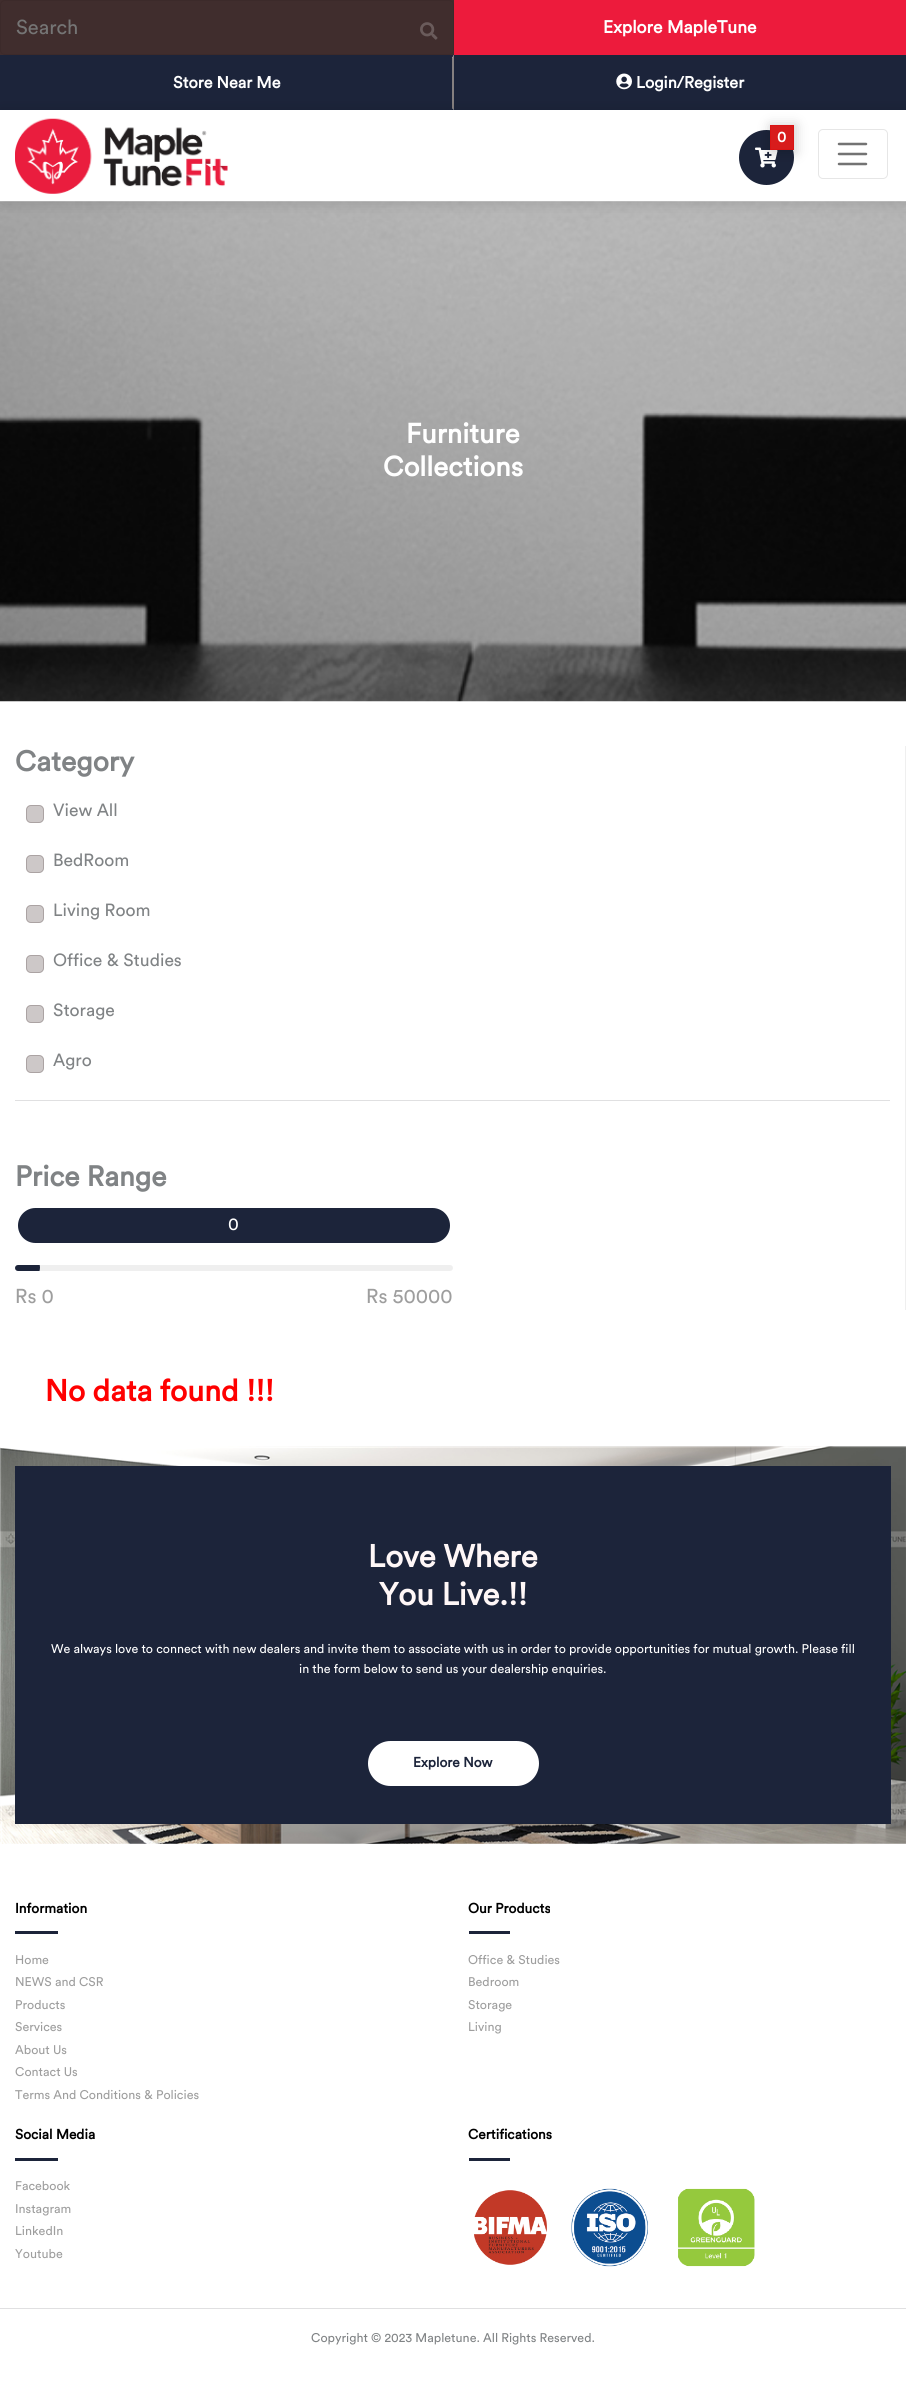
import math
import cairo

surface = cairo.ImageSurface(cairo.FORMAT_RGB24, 906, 2392)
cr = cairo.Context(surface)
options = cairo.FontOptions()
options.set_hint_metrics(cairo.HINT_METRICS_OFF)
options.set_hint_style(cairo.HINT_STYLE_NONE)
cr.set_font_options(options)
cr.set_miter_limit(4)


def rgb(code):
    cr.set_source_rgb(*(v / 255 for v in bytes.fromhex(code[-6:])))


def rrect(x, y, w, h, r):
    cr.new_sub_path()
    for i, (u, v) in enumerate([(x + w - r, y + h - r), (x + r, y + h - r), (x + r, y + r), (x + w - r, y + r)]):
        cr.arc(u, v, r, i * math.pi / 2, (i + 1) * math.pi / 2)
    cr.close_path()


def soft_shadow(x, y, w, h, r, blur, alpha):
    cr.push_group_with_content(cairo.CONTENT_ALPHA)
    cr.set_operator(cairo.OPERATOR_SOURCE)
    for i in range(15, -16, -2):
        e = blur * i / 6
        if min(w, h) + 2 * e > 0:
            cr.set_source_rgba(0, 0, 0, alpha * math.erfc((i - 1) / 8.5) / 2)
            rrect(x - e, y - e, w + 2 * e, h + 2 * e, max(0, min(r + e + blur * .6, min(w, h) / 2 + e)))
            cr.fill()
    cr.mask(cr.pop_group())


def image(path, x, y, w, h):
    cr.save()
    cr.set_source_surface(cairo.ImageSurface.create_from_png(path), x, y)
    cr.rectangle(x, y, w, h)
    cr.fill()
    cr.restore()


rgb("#ffffff")
cr.paint()
rgb("#402d2d")
cr.rectangle(0, 0, 454, 55)
cr.fill()
rrect(0.5, 0.5, 453, 54, 4.5)
rgb("#3c2a2a")
cr.set_line_width(1)
cr.stroke()
image("img/1.png", 420, 22, 18, 18)
rgb("#ed1b3c")
cr.rectangle(454, 0, 452, 55)
cr.fill()
rgb("#1c243a")
cr.rectangle(3, 58, 449, 50)
cr.fill()
cr.new_path()
cr.move_to(0, 55)
cr.line_to(454, 55)
cr.line_to(452, 58)
cr.line_to(2, 58)
cr.close_path()
cr.fill()
rgb("#858080")
cr.new_path()
cr.move_to(454, 55)
cr.line_to(454, 110)
cr.line_to(452, 108)
cr.line_to(452, 58)
cr.close_path()
cr.fill()
rgb("#1c243a")
cr.new_path()
cr.move_to(454, 110)
cr.line_to(0, 110)
cr.line_to(2, 108)
cr.line_to(452, 108)
cr.close_path()
cr.fill()
cr.rectangle(0, 55, 3, 55)
cr.fill()
cr.rectangle(454, 55, 452, 55)
cr.fill()
image("img/2.png", 616, 73, 16, 17)
image("img/5.png", 0, 201, 906, 501)
cr.save()
cr.set_fill_rule(cairo.FILL_RULE_EVEN_ODD)
cr.new_path()
cr.move_to(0, 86)
cr.line_to(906, 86)
cr.line_to(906, 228)
cr.line_to(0, 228)
cr.close_path()
cr.move_to(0, 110)
cr.line_to(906, 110)
cr.line_to(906, 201)
cr.line_to(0, 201)
cr.close_path()
cr.clip()
rgb("#000000")
soft_shadow(0, 110, 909, 94, 0, 7.5, 0.12)
cr.restore()
image("img/3.png", 15, 118, 213, 76)
cr.arc(766.5, 157.5, 26, 0, 2 * math.pi)
cr.fill_preserve()
cr.set_line_width(3)
cr.stroke()
image("img/4.png", 755, 147, 23, 21)
rgb("#000000")
soft_shadow(770, 125, 26, 28, 0, 6, 0.18)
rgb("#d81c1c")
cr.rectangle(770.5, 125.5, 23, 24)
cr.fill_preserve()
rgb("#da1414")
cr.set_line_width(1)
cr.stroke()
rrect(818.5, 129.5, 69, 49, 4.5)
rgb("#e6e6e6")
cr.stroke()
cr.new_path()
cr.move_to(839, 144)
cr.line_to(866, 144)
cr.move_to(839, 154)
cr.line_to(866, 154)
cr.move_to(839, 164)
cr.line_to(866, 164)
rgb("#737373")
cr.set_line_width(2.5)
cr.set_line_cap(cairo.LINE_CAP_ROUND)
cr.stroke()
rgb("#efefef")
cr.rectangle(905, 746, 1, 564)
cr.fill()
rgb("#cdc8c8")
rrect(26, 805, 18, 18, 5)
cr.fill()
rrect(26.5, 805.5, 17, 17, 4.5)
cr.set_source_rgba(0.404, 0.349, 0.349, 0.33)
cr.set_line_width(1)
cr.set_line_cap(cairo.LINE_CAP_BUTT)
cr.stroke()
rgb("#cdc8c8")
rrect(26, 855, 18, 18, 5)
cr.fill()
rrect(26.5, 855.5, 17, 17, 4.5)
cr.set_source_rgba(0.404, 0.349, 0.349, 0.33)
cr.stroke()
rgb("#cdc8c8")
rrect(26, 905, 18, 18, 5)
cr.fill()
rrect(26.5, 905.5, 17, 17, 4.5)
cr.set_source_rgba(0.404, 0.349, 0.349, 0.33)
cr.stroke()
rgb("#cdc8c8")
rrect(26, 955, 18, 18, 5)
cr.fill()
rrect(26.5, 955.5, 17, 17, 4.5)
cr.set_source_rgba(0.404, 0.349, 0.349, 0.33)
cr.stroke()
rgb("#cdc8c8")
rrect(26, 1005, 18, 18, 5)
cr.fill()
rrect(26.5, 1005.5, 17, 17, 4.5)
cr.set_source_rgba(0.404, 0.349, 0.349, 0.33)
cr.stroke()
rgb("#cdc8c8")
rrect(26, 1055, 18, 18, 5)
cr.fill()
rrect(26.5, 1055.5, 17, 17, 4.5)
cr.set_source_rgba(0.404, 0.349, 0.349, 0.33)
cr.stroke()
rgb("#e0e0e1")
cr.rectangle(15, 1100, 875, 1)
cr.fill()
rgb("#1c243a")
rrect(16.5, 1206.5, 435, 38, 19)
cr.fill_preserve()
rgb("#ffffff")
cr.set_line_width(3)
cr.stroke()
rgb("#efefef")
rrect(15, 1265, 438, 6, 3)
cr.fill()
cr.save()
rrect(15, 1265, 438, 6, 3)
cr.clip()
rgb("#1c243a")
cr.arc(27.5, 1267.5, 12.5, 0, 2 * math.pi)
cr.fill()
cr.restore()
image("img/6.png", 0, 1446, 906, 398)
rgb("#1c243a")
cr.rectangle(15, 1466, 876, 358)
cr.fill()
rgb("#ffffff")
rrect(369.5, 1742.5, 168, 42, 21)
cr.fill_preserve()
cr.stroke()
for x, y, w, h, color in [
    (15, 1931, 43, 3, "#1c243a"),
    (469, 1931, 41, 3, "#1c243a"),
    (15, 2158, 43, 3, "#1c243a"),
    (469, 2158, 41, 3, "#1c243a"),
]:
    rgb(color)
    cr.rectangle(x, y, w, h)
    cr.fill()
image("img/7.png", 474, 2188, 281, 79)
rgb("#e0e0e1")
cr.rectangle(0, 2308, 906, 1)
cr.fill()
cr.select_font_face("Circular")
cr.set_font_size(20)
rgb("#757575")
cr.move_to(16, 34)
cr.show_text("Search")
cr.select_font_face("Circular", cairo.FONT_SLANT_NORMAL, cairo.FONT_WEIGHT_BOLD)
cr.set_font_size(17.5)
rgb("#ffffff")
cr.move_to(603, 33)
cr.show_text("Explore MapleTune")
cr.set_font_size(16.25)
cr.move_to(173, 88)
cr.show_text("Store Near Me")
cr.move_to(636, 88)
cr.show_text("Login/Register")
cr.set_font_size(15)
cr.move_to(777, 142)
cr.show_text("0")
cr.set_font_size(27.5)
cr.move_to(406, 443)
cr.show_text("Furniture")
cr.move_to(383, 476)
cr.show_text("Collections")
cr.set_font_size(28.25)
rgb("#808385")
cr.move_to(15, 771)
cr.show_text("Category")
cr.select_font_face("Circular")
cr.set_font_size(17.5)
for x, y, s in [
    (53, 816, "View All"),
    (53, 866, "BedRoom"),
    (53, 916, "Living Room"),
    (53, 966, "Office & Studies"),
    (53, 1016, "Storage"),
    (53, 1066, "Agro"),
]:
    cr.move_to(x, y)
    cr.show_text(s)
cr.select_font_face("Circular", cairo.FONT_SLANT_NORMAL, cairo.FONT_WEIGHT_BOLD)
cr.set_font_size(28.25)
cr.move_to(15, 1186)
cr.show_text("Price Range")
cr.select_font_face("Circular")
cr.set_font_size(17.5)
rgb("#ffffff")
cr.move_to(228, 1230)
cr.show_text("0")
cr.set_font_size(20)
rgb("#9e9e9e")
cr.move_to(15, 1303)
cr.show_text("Rs 0")
cr.move_to(366, 1303)
cr.show_text("Rs 50000")
cr.select_font_face("Circular", cairo.FONT_SLANT_NORMAL, cairo.FONT_WEIGHT_BOLD)
cr.set_font_size(30)
rgb("#ff0000")
cr.move_to(45, 1401)
cr.show_text("No data found !!!")
cr.set_font_size(31.25)
rgb("#fff7f7")
cr.move_to(368, 1567)
cr.show_text("Love Where")
cr.move_to(379, 1605)
cr.show_text("You Live.!!")
cr.select_font_face("Circular")
cr.set_font_size(12.5)
rgb("#ffffff")
cr.move_to(51, 1653)
cr.show_text("We always love to connect with new dealers and invite them to associate with us in order to provide opportunities for mutual growth. Please fill")
cr.move_to(299, 1673)
cr.show_text("in the form below to send us your dealership enquiries.")
cr.select_font_face("Circular", cairo.FONT_SLANT_NORMAL, cairo.FONT_WEIGHT_BOLD)
cr.set_font_size(13.75)
rgb("#1c243a")
cr.move_to(413, 1767)
cr.show_text("Explore Now")
rgb("#000000")
cr.move_to(15, 1913)
cr.show_text("Information")
cr.select_font_face("Circular")
cr.set_font_size(12.5)
rgb("#9e9e9e")
for x, y, s in [
    (15, 1964, "Home"),
    (15, 1986, "NEWS and CSR"),
    (15, 2009, "Products"),
    (15, 2031, "Services"),
    (15, 2054, "About Us"),
    (15, 2076, "Contact Us"),
    (15, 2099, "Terms And Conditions & Policies"),
]:
    cr.move_to(x, y)
    cr.show_text(s)
cr.select_font_face("Circular", cairo.FONT_SLANT_NORMAL, cairo.FONT_WEIGHT_BOLD)
cr.set_font_size(13.75)
rgb("#000000")
cr.move_to(468, 1913)
cr.show_text("Our Products")
cr.select_font_face("Circular")
cr.set_font_size(12.5)
rgb("#9e9e9e")
for x, y, s in [
    (468, 1964, "Office & Studies"),
    (468, 1986, "Bedroom"),
    (468, 2009, "Storage"),
    (468, 2031, "Living"),
]:
    cr.move_to(x, y)
    cr.show_text(s)
cr.select_font_face("Circular", cairo.FONT_SLANT_NORMAL, cairo.FONT_WEIGHT_BOLD)
cr.set_font_size(13.75)
rgb("#000000")
cr.move_to(15, 2139)
cr.show_text("Social Media")
cr.select_font_face("Circular")
cr.set_font_size(12.5)
rgb("#9e9e9e")
for x, y, s in [
    (15, 2190, "Facebook"),
    (15, 2213, "Instagram"),
    (15, 2235, "LinkedIn"),
    (15, 2258, "Youtube"),
]:
    cr.move_to(x, y)
    cr.show_text(s)
cr.select_font_face("Circular", cairo.FONT_SLANT_NORMAL, cairo.FONT_WEIGHT_BOLD)
cr.set_font_size(13.75)
rgb("#000000")
cr.move_to(468, 2139)
cr.show_text("Certifications")
cr.select_font_face("Circular")
cr.set_font_size(12.5)
rgb("#808385")
cr.move_to(311, 2342)
cr.show_text("Copyright © 2023 Mapletune. All Rights Reserved.")
surface.write_to_png("page.png")
